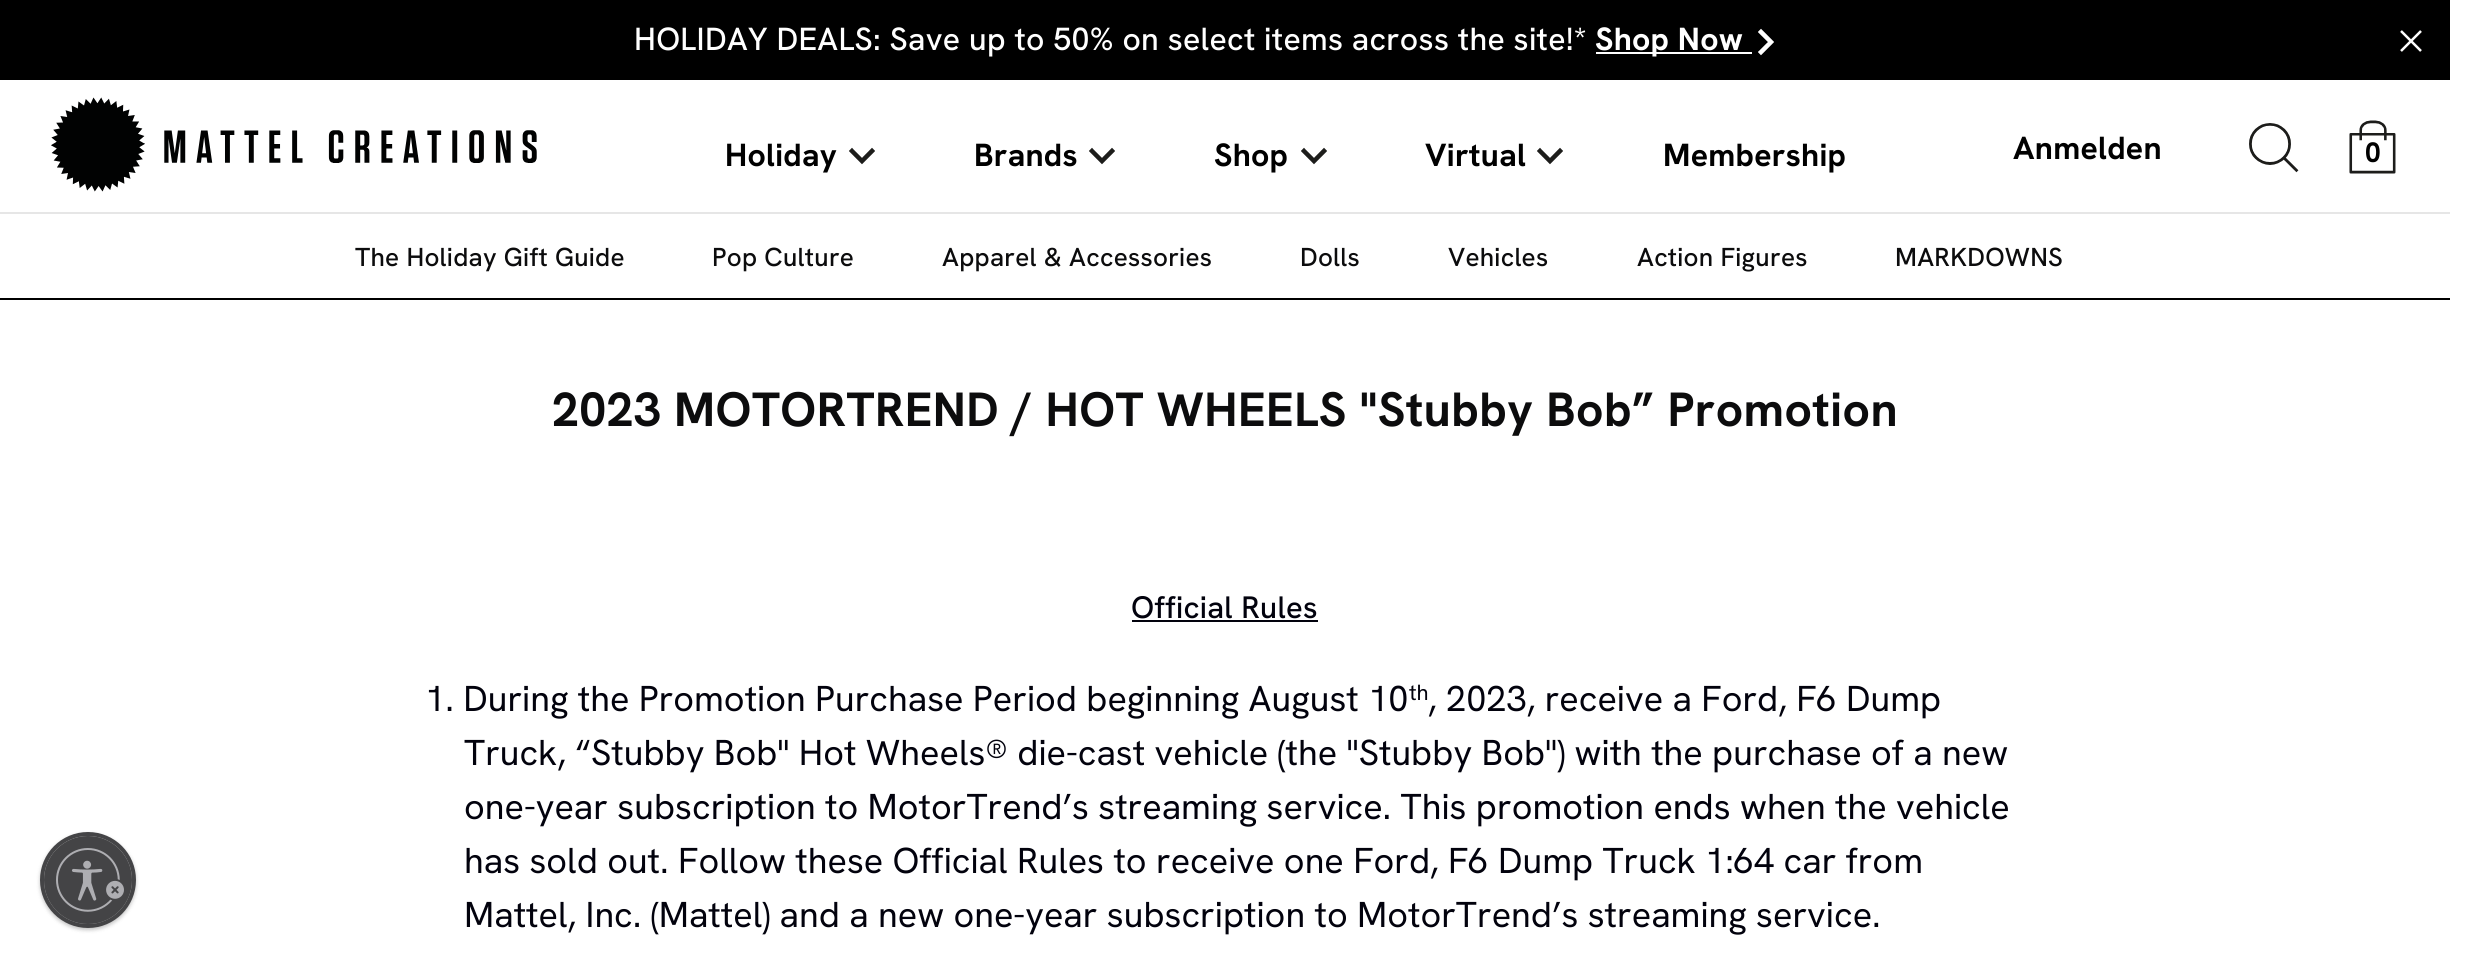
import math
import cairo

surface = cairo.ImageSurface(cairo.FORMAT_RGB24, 2480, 967)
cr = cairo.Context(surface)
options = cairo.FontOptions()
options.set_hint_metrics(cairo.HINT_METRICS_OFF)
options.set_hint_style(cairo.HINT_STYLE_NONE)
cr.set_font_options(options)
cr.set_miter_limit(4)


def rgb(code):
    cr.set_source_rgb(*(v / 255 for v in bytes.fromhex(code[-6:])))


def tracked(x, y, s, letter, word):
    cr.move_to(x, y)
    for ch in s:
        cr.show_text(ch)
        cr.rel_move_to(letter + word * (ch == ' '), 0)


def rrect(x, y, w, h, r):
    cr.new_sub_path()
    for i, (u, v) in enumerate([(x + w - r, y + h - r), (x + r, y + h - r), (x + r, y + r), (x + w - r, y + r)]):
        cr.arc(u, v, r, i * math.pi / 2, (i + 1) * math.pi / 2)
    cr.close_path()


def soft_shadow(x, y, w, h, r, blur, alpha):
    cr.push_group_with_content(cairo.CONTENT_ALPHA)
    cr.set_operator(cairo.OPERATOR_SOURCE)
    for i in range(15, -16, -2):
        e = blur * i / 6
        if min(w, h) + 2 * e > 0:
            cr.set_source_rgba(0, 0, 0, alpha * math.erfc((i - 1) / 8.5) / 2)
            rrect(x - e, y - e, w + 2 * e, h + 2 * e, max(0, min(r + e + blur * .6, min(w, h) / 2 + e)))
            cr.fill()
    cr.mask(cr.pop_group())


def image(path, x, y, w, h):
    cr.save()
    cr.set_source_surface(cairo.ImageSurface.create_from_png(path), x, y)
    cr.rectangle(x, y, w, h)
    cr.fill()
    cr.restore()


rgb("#ffffff")
cr.paint()
rgb("#000000")
soft_shadow(40, 834, 96, 96, 48, 2, 0.24)
cr.arc(88, 880, 46, 0, 2 * math.pi)
rgb("#444446")
cr.set_line_width(4)
cr.stroke()
cr.save()
rrect(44, 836, 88, 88, 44)
cr.clip()
rgb("#000000")
soft_shadow(44, 838, 88, 88, 44, 2, 0.24)
cr.restore()
cr.arc(88, 880, 44, 0, 2 * math.pi)
cr.fill()
image("img/1.png", 56, 848, 68, 64)
rgb("#000000")
cr.rectangle(0, 0, 2450, 80)
cr.fill()
rgb("#ffffff")
cr.rectangle(1596, 52, 156, 2)
cr.fill()
image("img/2.png", 1758, 28, 16, 28)
image("img/3.png", 2400, 30, 22, 22)
image("img/4.png", 51, 97, 486, 95)
image("img/5.png", 849, 147, 26, 18)
image("img/5.png", 1089, 147, 26, 18)
image("img/5.png", 1301, 147, 26, 18)
image("img/5.png", 1537, 147, 26, 18)
image("img/6.png", 2249, 123, 50, 50)
image("img/7.png", 2349, 120, 47, 54)
for x, y, w, h, color in [
    (0, 212, 2450, 2, "#e6e6e6"),
    (0, 298, 2450, 2, "#000000"),
    (1132, 620, 186, 2, "#02020d"),
]:
    rgb(color)
    cr.rectangle(x, y, w, h)
    cr.fill()
cr.select_font_face("Hanken Grotesk Medium")
cr.set_font_size(32)
rgb("#ffffff")
tracked(634, 50, "HOLIDAY DEALS: Save up to 50% on select items across the site!*", 0.28, 0)
cr.select_font_face("Hanken Grotesk", cairo.FONT_SLANT_NORMAL, cairo.FONT_WEIGHT_BOLD)
tracked(1595, 50, "Shop Now", 0.28, 0)
rgb("#000000")
for x, y, s in [
    (725, 166, "Holiday"),
    (974, 166, "Brands"),
    (1214, 166, "Shop"),
    (1425, 166, "Virtual"),
    (1663, 166, "Membership"),
    (2013, 159, "Anmelden"),
]:
    tracked(x, y, s, 0.28, 0)
cr.set_font_size(28)
cr.move_to(2365, 162)
cr.show_text("0")
cr.select_font_face("Hanken Grotesk Medium")
cr.set_font_size(26)
rgb("#0c0c0d")
for x, y, s in [
    (355, 266, "The Holiday Gift Guide"),
    (712, 266, "Pop Culture"),
    (942, 266, "Apparel & Accessories"),
    (1300, 266, "Dolls"),
    (1448, 266, "Vehicles"),
    (1637, 266, "Action Figures"),
    (1895, 266, "MARKDOWNS"),
]:
    tracked(x, y, s, 0.25, 0)
cr.select_font_face("Hanken Grotesk", cairo.FONT_SLANT_NORMAL, cairo.FONT_WEIGHT_BOLD)
cr.set_font_size(48)
tracked(552, 426, "2023 MOTORTREND / HOT WHEELS \"Stubby Bob” Promotion", 0.42, 0)
cr.select_font_face("Hanken Grotesk Medium")
cr.set_font_size(31)
rgb("#02020d")
tracked(1131, 618, "Official Rules", 0.25, 0)
cr.select_font_face("Hanken Grotesk")
cr.set_font_size(36)
cr.move_to(425, 711)
cr.show_text("1. During the Promotion Purchase Period beginning August 10")
cr.set_font_size(22)
cr.move_to(1409, 700)
cr.show_text("th")
cr.set_font_size(36)
for x, y, s in [
    (1428, 711, ", 2023, receive a Ford, F6 Dump"),
    (464, 765, "Truck, “Stubby Bob\" Hot Wheels® die-cast vehicle (the \"Stubby Bob\") with the purchase of a new"),
    (464, 819, "one-year subscription to MotorTrend’s streaming service. This promotion ends when the vehicle"),
    (464, 873, "has sold out. Follow these Official Rules to receive one Ford, F6 Dump Truck 1:64 car from"),
    (464, 927, "Mattel, Inc. (Mattel) and a new one-year subscription to MotorTrend’s streaming service."),
]:
    cr.move_to(x, y)
    cr.show_text(s)
surface.write_to_png("page.png")
